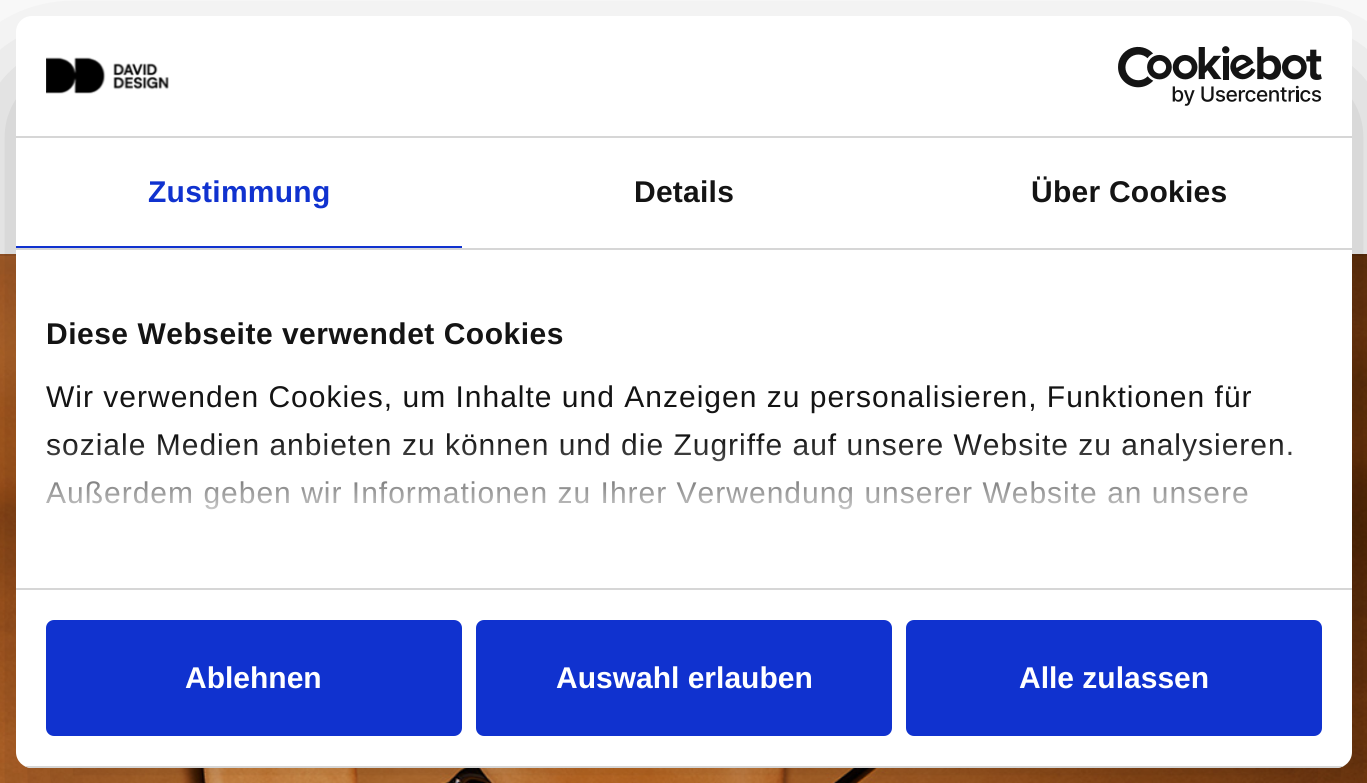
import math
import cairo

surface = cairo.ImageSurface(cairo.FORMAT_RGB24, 1367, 783)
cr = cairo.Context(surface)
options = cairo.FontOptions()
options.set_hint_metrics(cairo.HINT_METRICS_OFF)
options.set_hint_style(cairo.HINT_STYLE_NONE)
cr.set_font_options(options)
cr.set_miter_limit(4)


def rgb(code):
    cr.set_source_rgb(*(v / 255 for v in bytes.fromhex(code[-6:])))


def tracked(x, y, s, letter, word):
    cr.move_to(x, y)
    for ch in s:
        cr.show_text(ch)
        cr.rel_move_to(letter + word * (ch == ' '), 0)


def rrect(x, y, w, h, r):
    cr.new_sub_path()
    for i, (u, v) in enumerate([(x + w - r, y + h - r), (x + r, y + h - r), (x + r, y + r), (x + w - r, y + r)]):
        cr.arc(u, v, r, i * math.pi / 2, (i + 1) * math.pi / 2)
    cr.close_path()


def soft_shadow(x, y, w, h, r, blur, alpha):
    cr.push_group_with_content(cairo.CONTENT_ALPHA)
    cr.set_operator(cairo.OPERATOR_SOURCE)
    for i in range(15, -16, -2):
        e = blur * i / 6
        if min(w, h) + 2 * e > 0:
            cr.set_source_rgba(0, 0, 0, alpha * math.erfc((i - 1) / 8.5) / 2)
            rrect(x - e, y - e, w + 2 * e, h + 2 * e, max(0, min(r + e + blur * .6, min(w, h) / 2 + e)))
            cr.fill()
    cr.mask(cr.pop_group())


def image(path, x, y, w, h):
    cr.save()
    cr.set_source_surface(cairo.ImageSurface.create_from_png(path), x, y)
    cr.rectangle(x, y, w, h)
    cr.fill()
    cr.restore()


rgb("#ffffff")
cr.paint()
image("img/3.png", 0, 254, 1367, 529)
cr.set_source_rgba(0, 0, 0, 0.1)
cr.rectangle(0, 254, 1367, 2)
cr.fill()
rgb("#000000")
soft_shadow(16, 80, 1336, 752, 16, 68, 0.3)
rgb("#ffffff")
rrect(16, 16, 1336, 752, 16)
cr.fill()
rgb("#d6d6d6")
cr.rectangle(16, 136, 1336, 2)
cr.fill()
image("img/1.png", 46, 57, 123, 37)
image("img/2.png", 1118, 46, 204, 60)
for x, y, w, h, color in [
    (16, 248, 1336, 2, "#d6d6d6"),
    (16, 246, 446, 2, "#1032cf"),
    (16, 588, 1336, 2, "#d6d6d6"),
]:
    rgb(color)
    cr.rectangle(x, y, w, h)
    cr.fill()
cr.save()
rrect(16, 16, 1336, 752, 16)
cr.clip()
cr.rectangle(16, 766, 1336, 2)
cr.fill()
cr.restore()
rgb("#1032cf")
rrect(48, 622, 412, 112, 6)
cr.fill_preserve()
cr.set_line_width(4)
cr.stroke()
rrect(478, 622, 412, 112, 6)
cr.fill_preserve()
cr.stroke()
rrect(908, 622, 412, 112, 6)
cr.fill_preserve()
cr.stroke()
cr.select_font_face("Liberation Sans", cairo.FONT_SLANT_NORMAL, cairo.FONT_WEIGHT_BOLD)
cr.set_font_size(30)
tracked(148, 202, "Zustimmung", 0.25, 0)
rgb("#141414")
tracked(634, 202, "Details", 0.25, 0)
tracked(1031, 202, "Über Cookies", 0.25, 0)
tracked(46, 344, "Diese Webseite verwendet Cookies", 0.5, 0)
cr.select_font_face("Liberation Sans")
for x, y, s in [
    (46, 407, "Wir verwenden Cookies, um Inhalte und Anzeigen zu personalisieren, Funktionen für"),
    (46, 455, "soziale Medien anbieten zu können und die Zugriffe auf unsere Website zu analysieren."),
    (46, 503, "Außerdem geben wir Informationen zu Ihrer Verwendung unserer Website an unsere"),
]:
    tracked(x, y, s, 1, 0)
gradient = cairo.LinearGradient(671, 588, 671, 438)
gradient.add_color_stop_rgba(0, 1, 1, 1, 1)
gradient.add_color_stop_rgba(0.5, 1, 1, 1, 0.8)
gradient.add_color_stop_rgba(1, 1, 1, 1, 0)
cr.set_source(gradient)
cr.rectangle(46, 440, 1246, 70)
cr.fill()
cr.select_font_face("Liberation Sans", cairo.FONT_SLANT_NORMAL, cairo.FONT_WEIGHT_BOLD)
rgb("#ffffff")
for x, y, s in [
    (185, 688, "Ablehnen"),
    (556, 688, "Auswahl erlauben"),
    (1019, 688, "Alle zulassen"),
]:
    cr.move_to(x, y)
    cr.show_text(s)
surface.write_to_png("page.png")
